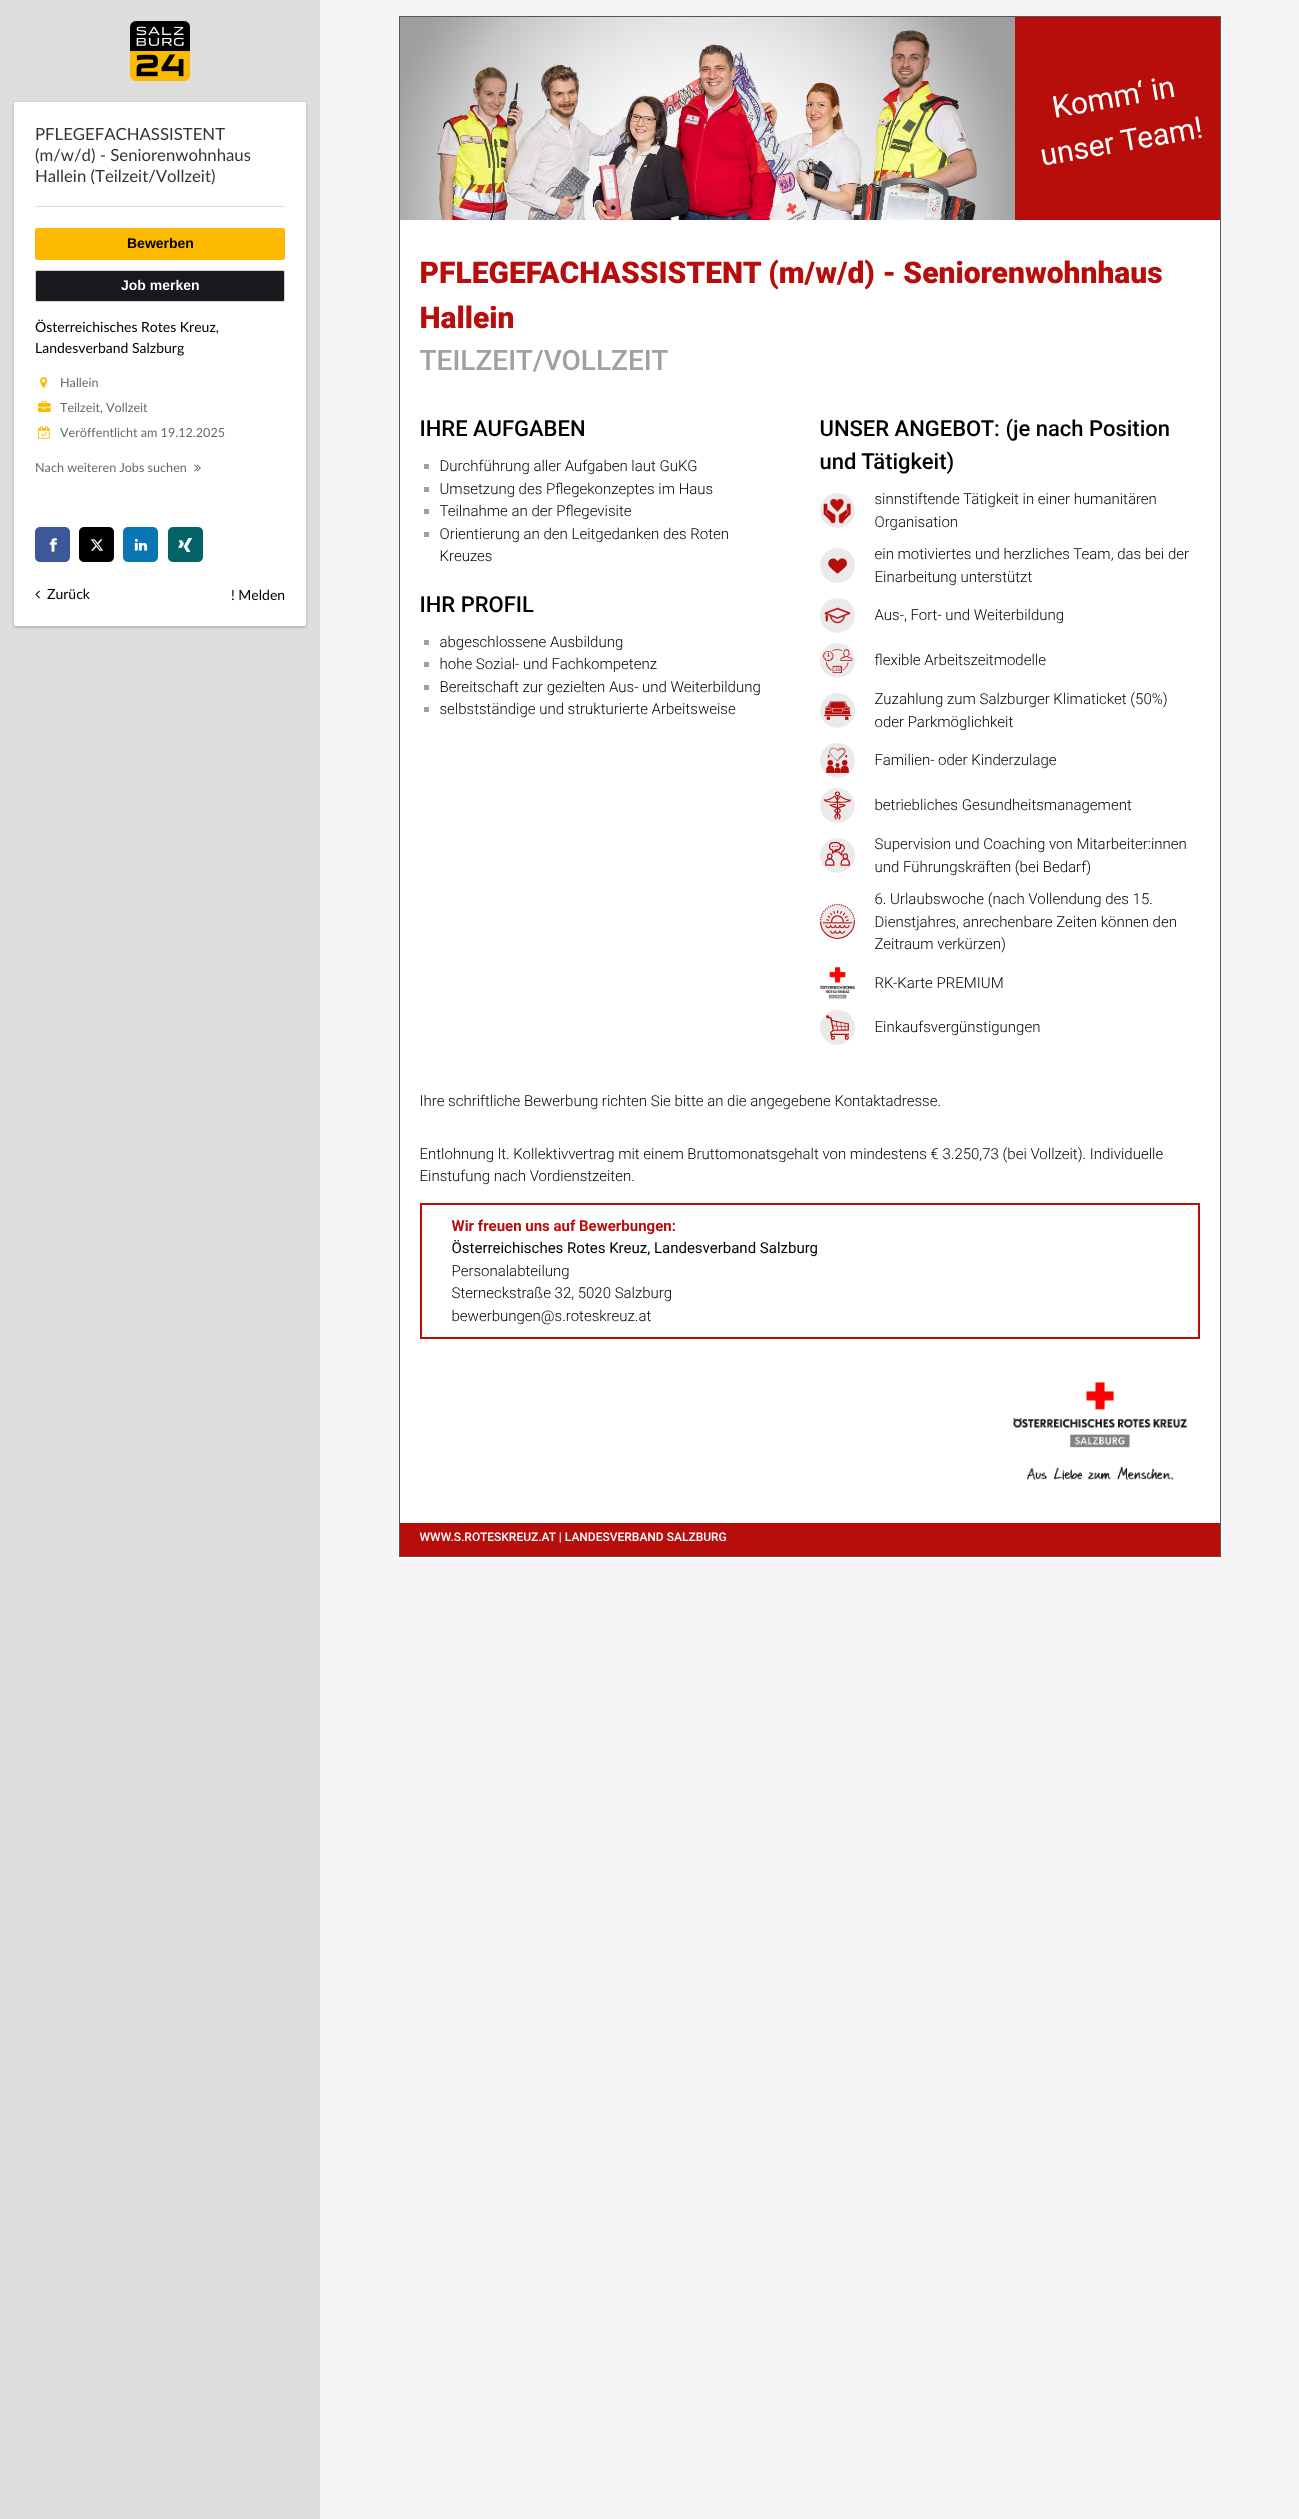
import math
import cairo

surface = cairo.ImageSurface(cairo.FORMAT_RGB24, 1299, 2519)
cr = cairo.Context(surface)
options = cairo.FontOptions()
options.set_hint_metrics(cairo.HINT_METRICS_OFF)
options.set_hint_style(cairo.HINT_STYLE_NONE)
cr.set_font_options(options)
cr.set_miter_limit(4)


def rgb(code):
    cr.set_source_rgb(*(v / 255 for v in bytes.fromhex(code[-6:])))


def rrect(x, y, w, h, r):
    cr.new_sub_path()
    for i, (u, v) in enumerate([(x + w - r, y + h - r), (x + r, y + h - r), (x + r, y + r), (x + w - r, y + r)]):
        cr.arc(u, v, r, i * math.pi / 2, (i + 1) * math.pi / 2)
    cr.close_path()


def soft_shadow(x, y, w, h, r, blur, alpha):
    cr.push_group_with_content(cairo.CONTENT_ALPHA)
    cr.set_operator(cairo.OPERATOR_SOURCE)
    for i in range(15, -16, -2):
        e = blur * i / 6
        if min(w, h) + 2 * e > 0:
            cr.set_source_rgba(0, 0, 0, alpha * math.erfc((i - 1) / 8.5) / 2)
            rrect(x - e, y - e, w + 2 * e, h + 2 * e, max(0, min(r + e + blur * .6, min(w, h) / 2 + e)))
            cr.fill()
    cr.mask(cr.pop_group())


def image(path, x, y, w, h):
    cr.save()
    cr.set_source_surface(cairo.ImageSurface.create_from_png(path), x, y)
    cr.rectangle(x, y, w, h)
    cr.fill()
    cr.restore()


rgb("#f5f5f5")
cr.paint()
rgb("#dddddd")
cr.rectangle(0, 0, 320, 2519)
cr.fill()
image("img/1.png", 130, 21, 60, 60)
rgb("#000000")
soft_shadow(14, 103, 292, 524, 2, 1.5, 0.25)
rgb("#ffffff")
rrect(14, 102, 292, 524, 2)
cr.fill()
rgb("#dddddd")
cr.rectangle(35, 206, 250, 1)
cr.fill()
rgb("#fbba00")
rrect(35.5, 228.5, 249, 31, 1.5)
cr.fill_preserve()
cr.set_line_width(1)
cr.stroke()
rgb("#1a181d")
rrect(35.5, 270.5, 249, 31, 1.5)
cr.fill_preserve()
rgb("#d2d2d2")
cr.stroke()
image("img/2.png", 40, 377, 8, 11)
image("img/3.png", 38, 401, 13, 11)
image("img/4.png", 38, 426, 12, 13)
image("img/5.png", 194, 464, 7, 8)
rgb("#3b5998")
rrect(35, 527, 35, 35, 5)
cr.fill()
image("img/6.png", 49, 538, 8, 14)
rgb("#000000")
rrect(79, 527, 35, 35, 5)
cr.fill()
image("img/7.png", 90, 539, 14, 12)
rgb("#0976b4")
rrect(123, 527, 35, 35, 5)
cr.fill()
image("img/8.png", 134, 538, 14, 13)
rgb("#026466")
rrect(168, 527, 35, 35, 5)
cr.fill()
image("img/9.png", 178, 538, 14, 14)
image("img/10.png", 35, 590, 5, 9)
image("img/11.png", 399, 16, 822, 1541)
cr.select_font_face("Lato")
cr.set_font_size(16.75)
rgb("#333333")
for x, y, s in [
    (35, 140, "PFLEGEFACHASSISTENT"),
    (35, 161, "(m/w/d) - Seniorenwohnhaus"),
    (35, 182, "Hallein (Teilzeit/Vollzeit)"),
]:
    cr.move_to(x, y)
    cr.show_text(s)
cr.select_font_face("Liberation Sans", cairo.FONT_SLANT_NORMAL, cairo.FONT_WEIGHT_BOLD)
cr.set_font_size(14)
rgb("#000000")
cr.move_to(127, 248)
cr.show_text("Bewerben")
rgb("#ffffff")
cr.move_to(121, 290)
cr.show_text("Job merken")
cr.select_font_face("Lato")
rgb("#000000")
cr.move_to(35, 332)
cr.show_text("Österreichisches Rotes Kreuz,")
cr.move_to(35, 353)
cr.show_text("Landesverband Salzburg")
cr.set_font_size(12.6)
rgb("#666666")
for x, y, s in [
    (60, 387, "Hallein"),
    (60, 412, "Teilzeit, Vollzeit"),
    (60, 437, "Veröffentlicht am 19.12.2025"),
    (35, 472, "Nach weiteren Jobs suchen"),
]:
    cr.move_to(x, y)
    cr.show_text(s)
cr.set_font_size(14)
rgb("#000000")
cr.move_to(47, 599)
cr.show_text("Zurück")
cr.move_to(231, 600)
cr.show_text("! Melden")
surface.write_to_png("page.png")
